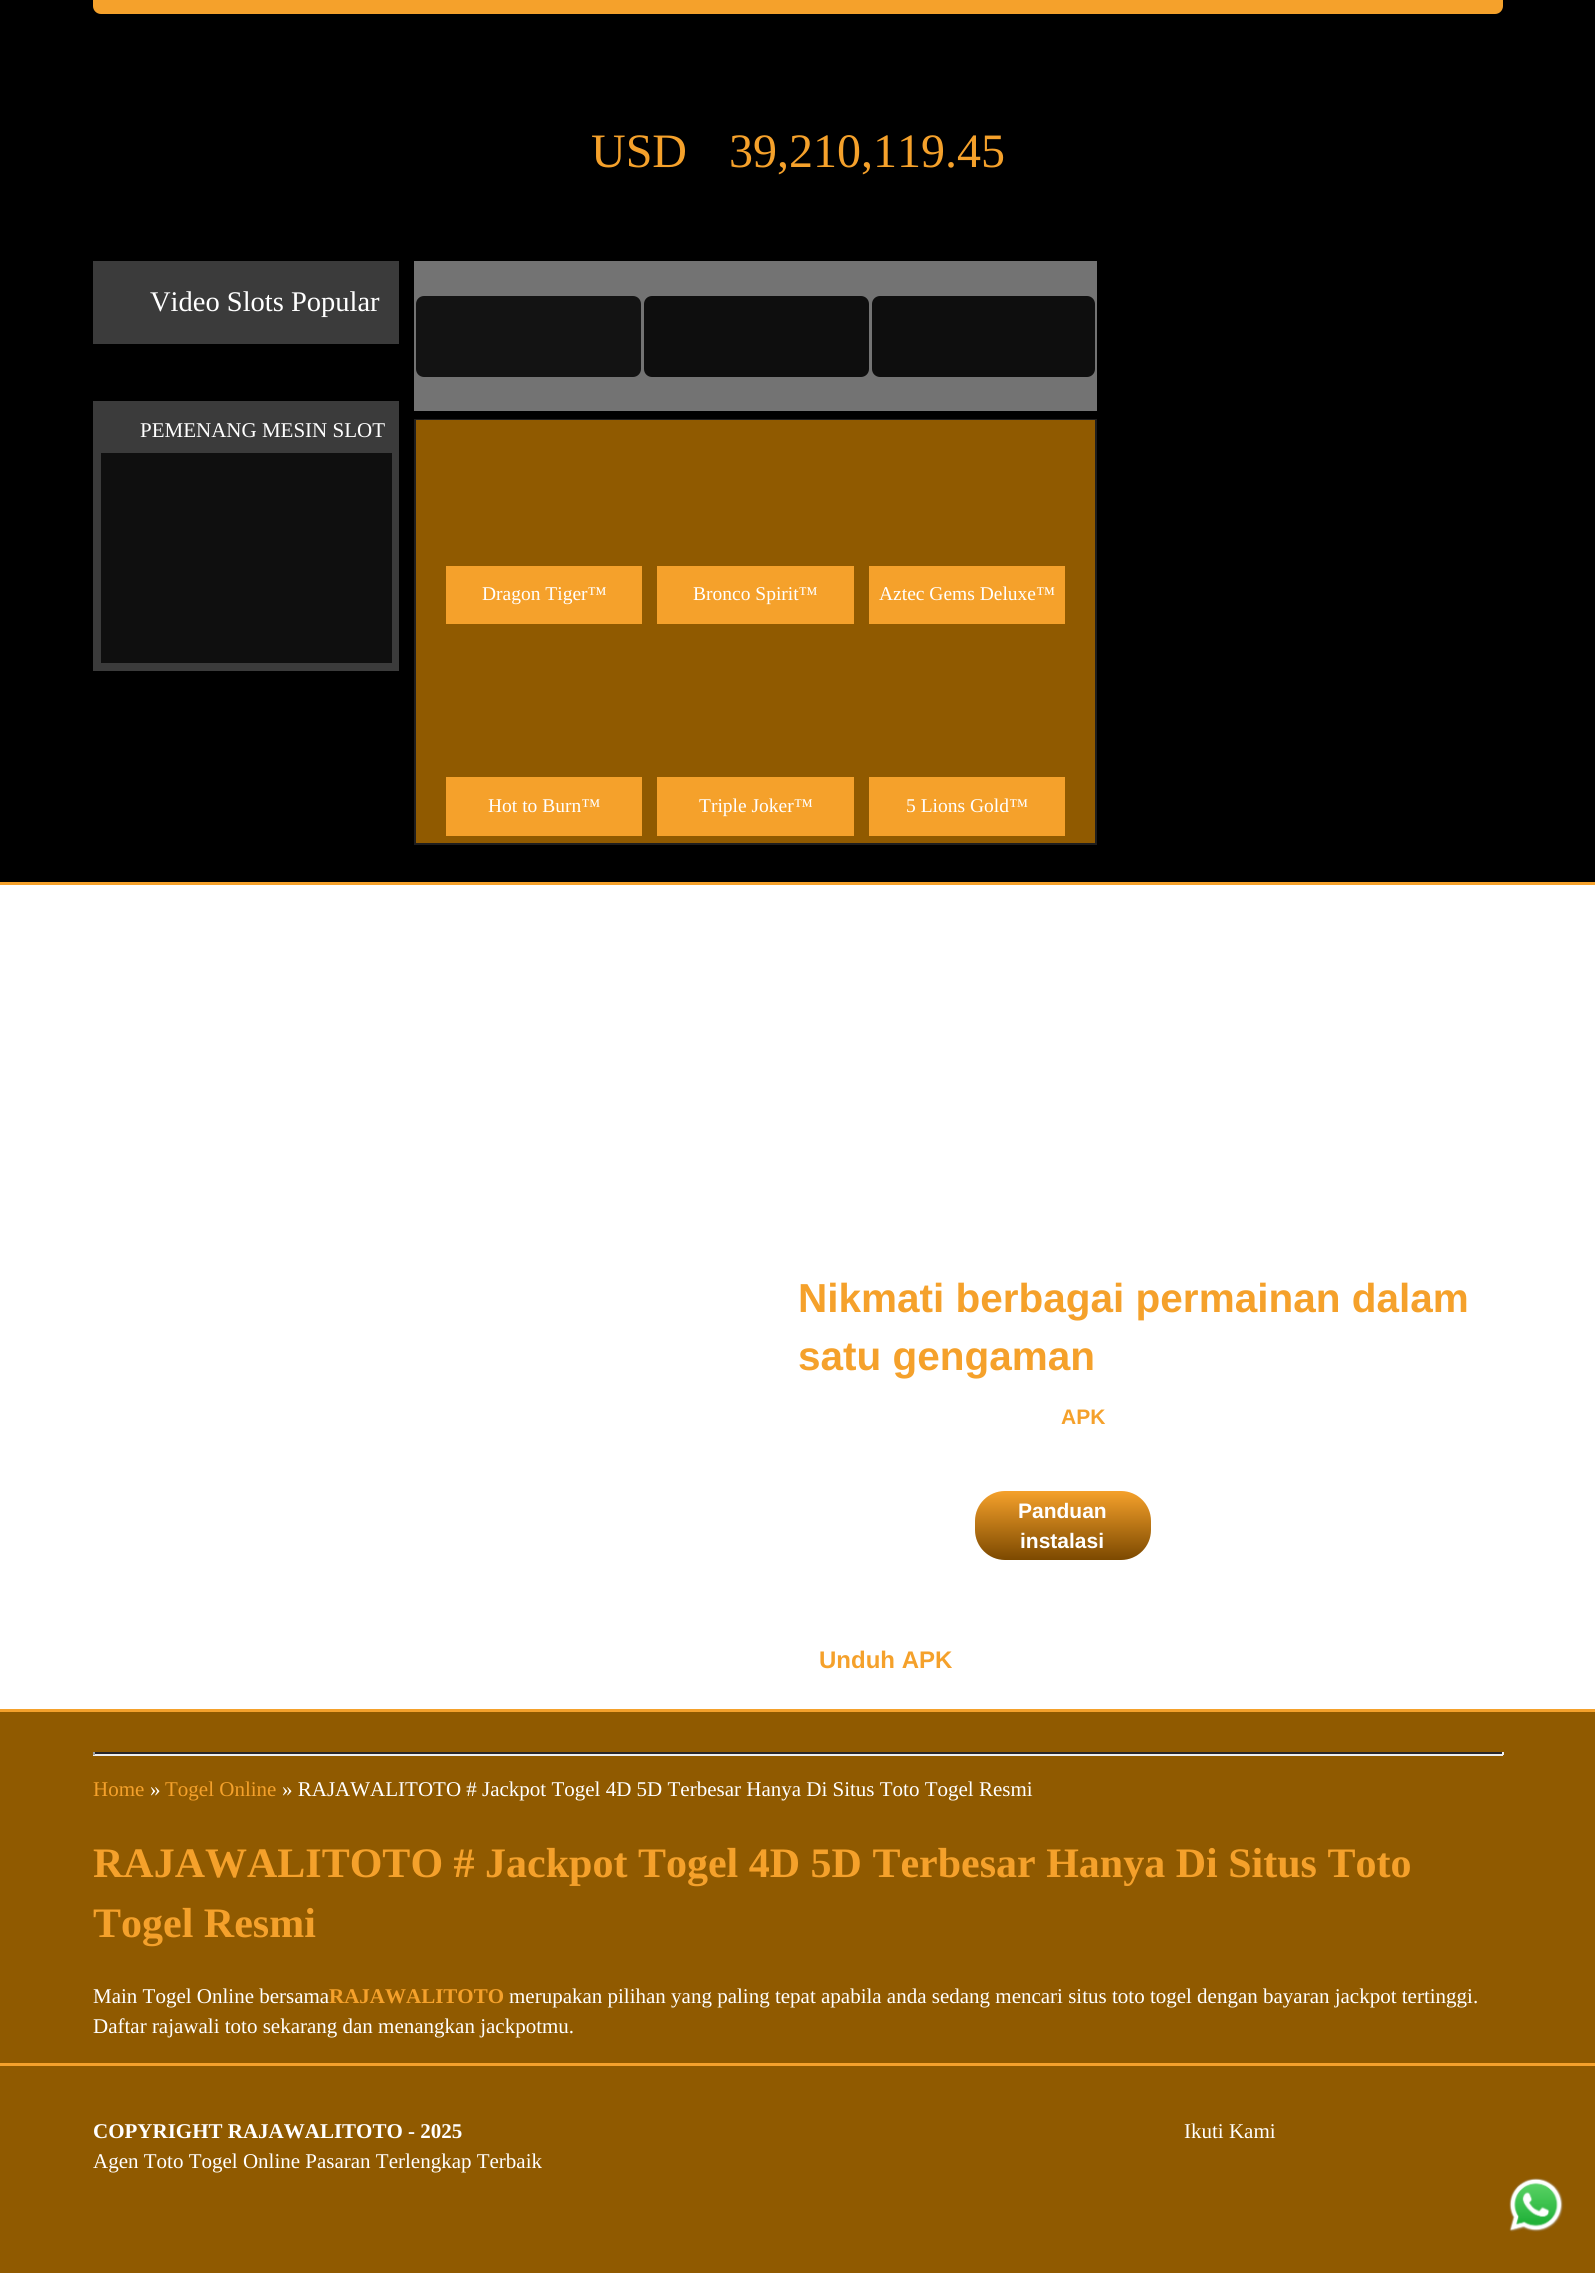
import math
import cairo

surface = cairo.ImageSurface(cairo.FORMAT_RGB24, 1595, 2273)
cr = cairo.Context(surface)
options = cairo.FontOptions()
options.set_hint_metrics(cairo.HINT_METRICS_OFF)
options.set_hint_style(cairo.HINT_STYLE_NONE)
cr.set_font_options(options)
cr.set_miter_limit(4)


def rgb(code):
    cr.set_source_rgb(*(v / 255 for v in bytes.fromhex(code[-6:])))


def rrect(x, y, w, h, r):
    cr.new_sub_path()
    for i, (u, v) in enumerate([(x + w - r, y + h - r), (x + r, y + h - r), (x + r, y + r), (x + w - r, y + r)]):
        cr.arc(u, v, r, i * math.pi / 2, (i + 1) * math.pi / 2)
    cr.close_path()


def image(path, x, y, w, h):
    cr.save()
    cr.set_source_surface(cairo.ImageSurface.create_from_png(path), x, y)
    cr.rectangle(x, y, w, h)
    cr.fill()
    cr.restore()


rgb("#ffffff")
cr.paint()
rgb("#000000")
cr.rectangle(0, 0, 1595, 882)
cr.fill()
rgb("#f5a12b")
cr.rectangle(0, 882, 1595, 3)
cr.fill()
rrect(93, -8, 1410, 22, 8)
cr.fill()
for x, y, w, h, color in [
    (93, 261, 306, 83, "#3b3b3b"),
    (93, 401, 306, 270, "#3b3b3b"),
    (101, 453, 291, 210, "#0f0f0f"),
    (414, 261, 683, 150, "#737373"),
]:
    rgb(color)
    cr.rectangle(x, y, w, h)
    cr.fill()
rgb("#131313")
rrect(416, 296, 225, 81, 8)
cr.fill()
rgb("#0e0e0e")
rrect(644, 296, 225, 81, 8)
cr.fill()
rrect(872, 296, 223, 81, 8)
cr.fill()
cr.rectangle(415, 420, 681, 424)
rgb("#1f1e1e")
cr.stroke()
for x, y, w, h, color in [
    (416, 420, 679, 423, "#905a00"),
    (446, 566, 196, 58, "#f5a12b"),
    (657, 566, 197, 58, "#f5a12b"),
    (869, 566, 196, 58, "#f5a12b"),
    (446, 777, 196, 59, "#f5a12b"),
    (657, 777, 197, 59, "#f5a12b"),
    (869, 777, 196, 59, "#f5a12b"),
]:
    rgb(color)
    cr.rectangle(x, y, w, h)
    cr.fill()
gradient = cairo.LinearGradient(1063, 1491, 1063, 1560)
gradient.add_color_stop_rgba(0, 0.961, 0.631, 0.169, 1)
gradient.add_color_stop_rgba(1, 0.486, 0.286, 0, 1)
cr.set_source(gradient)
rrect(975, 1491, 176, 69, 30)
cr.fill()
for x, y, w, h, color in [
    (0, 1712, 1595, 561, "#905a00"),
    (0, 1709, 1595, 3, "#f5a12b"),
    (93, 1752, 1410, 2, "#292729"),
    (1502, 1752, 2, 3, "#eeeeee"),
    (93, 1754, 1410, 2, "#eeeeee"),
    (93, 1752, 2, 3, "#9f9f9f"),
    (0, 2063, 1595, 3, "#f5a12b"),
]:
    rgb(color)
    cr.rectangle(x, y, w, h)
    cr.fill()
image("img/1.png", 1509, 2177, 55, 55)
cr.select_font_face("Liberation Serif")
cr.set_font_size(48)
cr.move_to(591, 167)
cr.show_text("USD")
cr.move_to(729, 167)
cr.show_text("39,210,119.45")
cr.set_font_size(28.5)
rgb("#ffffff")
cr.move_to(150, 311)
cr.show_text("Video Slots Popular")
cr.set_font_size(21)
cr.move_to(140, 437)
cr.show_text("PEMENANG MESIN SLOT")
cr.set_font_size(19.5)
for x, y, s in [
    (482, 600, "Dragon Tiger™"),
    (693, 600, "Bronco Spirit™"),
    (879, 600, "Aztec Gems Deluxe™"),
    (488, 812, "Hot to Burn™"),
    (699, 812, "Triple Joker™"),
    (906, 812, "5 Lions Gold™"),
]:
    cr.move_to(x, y)
    cr.show_text(s)
cr.select_font_face("Liberation Sans", cairo.FONT_SLANT_NORMAL, cairo.FONT_WEIGHT_BOLD)
cr.set_font_size(40.5)
rgb("#f5a12b")
cr.move_to(798, 1312)
cr.show_text("Nikmati berbagai permainan dalam")
cr.move_to(798, 1370)
cr.show_text("satu gengaman")
cr.set_font_size(21)
cr.move_to(1061, 1424)
cr.show_text("APK")
rgb("#ffffff")
cr.move_to(1018, 1518)
cr.show_text("Panduan")
cr.move_to(1020, 1548)
cr.show_text("instalasi")
cr.set_font_size(24)
rgb("#f5a12b")
cr.move_to(819, 1668)
cr.show_text("Unduh APK")
cr.select_font_face("Liberation Serif")
cr.set_font_size(21)
cr.move_to(93, 1796)
cr.show_text("Home")
rgb("#ffffff")
cr.move_to(150, 1796)
cr.show_text("»")
rgb("#f5a12b")
cr.move_to(165, 1796)
cr.show_text("Togel Online")
rgb("#ffffff")
cr.move_to(282, 1796)
cr.show_text("» RAJAWALITOTO # Jackpot Togel 4D 5D Terbesar Hanya Di Situs Toto Togel Resmi")
cr.select_font_face("Liberation Serif", cairo.FONT_SLANT_NORMAL, cairo.FONT_WEIGHT_BOLD)
cr.set_font_size(42)
rgb("#f5a12b")
cr.move_to(93, 1877)
cr.show_text("RAJAWALITOTO # Jackpot Togel 4D 5D Terbesar Hanya Di Situs Toto")
cr.move_to(93, 1937)
cr.show_text("Togel Resmi")
cr.select_font_face("Liberation Serif")
cr.set_font_size(21)
rgb("#ffffff")
cr.move_to(93, 2003)
cr.show_text("Main Togel Online bersama")
cr.select_font_face("Liberation Serif", cairo.FONT_SLANT_NORMAL, cairo.FONT_WEIGHT_BOLD)
rgb("#f5a12b")
cr.move_to(329, 2003)
cr.show_text("RAJAWALITOTO")
cr.select_font_face("Liberation Serif")
rgb("#ffffff")
cr.move_to(509, 2003)
cr.show_text("merupakan pilihan yang paling tepat apabila anda sedang mencari situs toto togel dengan bayaran jackpot tertinggi.")
cr.move_to(93, 2033)
cr.show_text("Daftar rajawali toto sekarang dan menangkan jackpotmu.")
cr.select_font_face("Liberation Serif", cairo.FONT_SLANT_NORMAL, cairo.FONT_WEIGHT_BOLD)
cr.move_to(93, 2138)
cr.show_text("COPYRIGHT RAJAWALITOTO - 2025")
cr.select_font_face("Liberation Serif")
cr.move_to(93, 2168)
cr.show_text("Agen Toto Togel Online Pasaran Terlengkap Terbaik")
cr.move_to(1184, 2138)
cr.show_text("Ikuti Kami")
surface.write_to_png("page.png")
